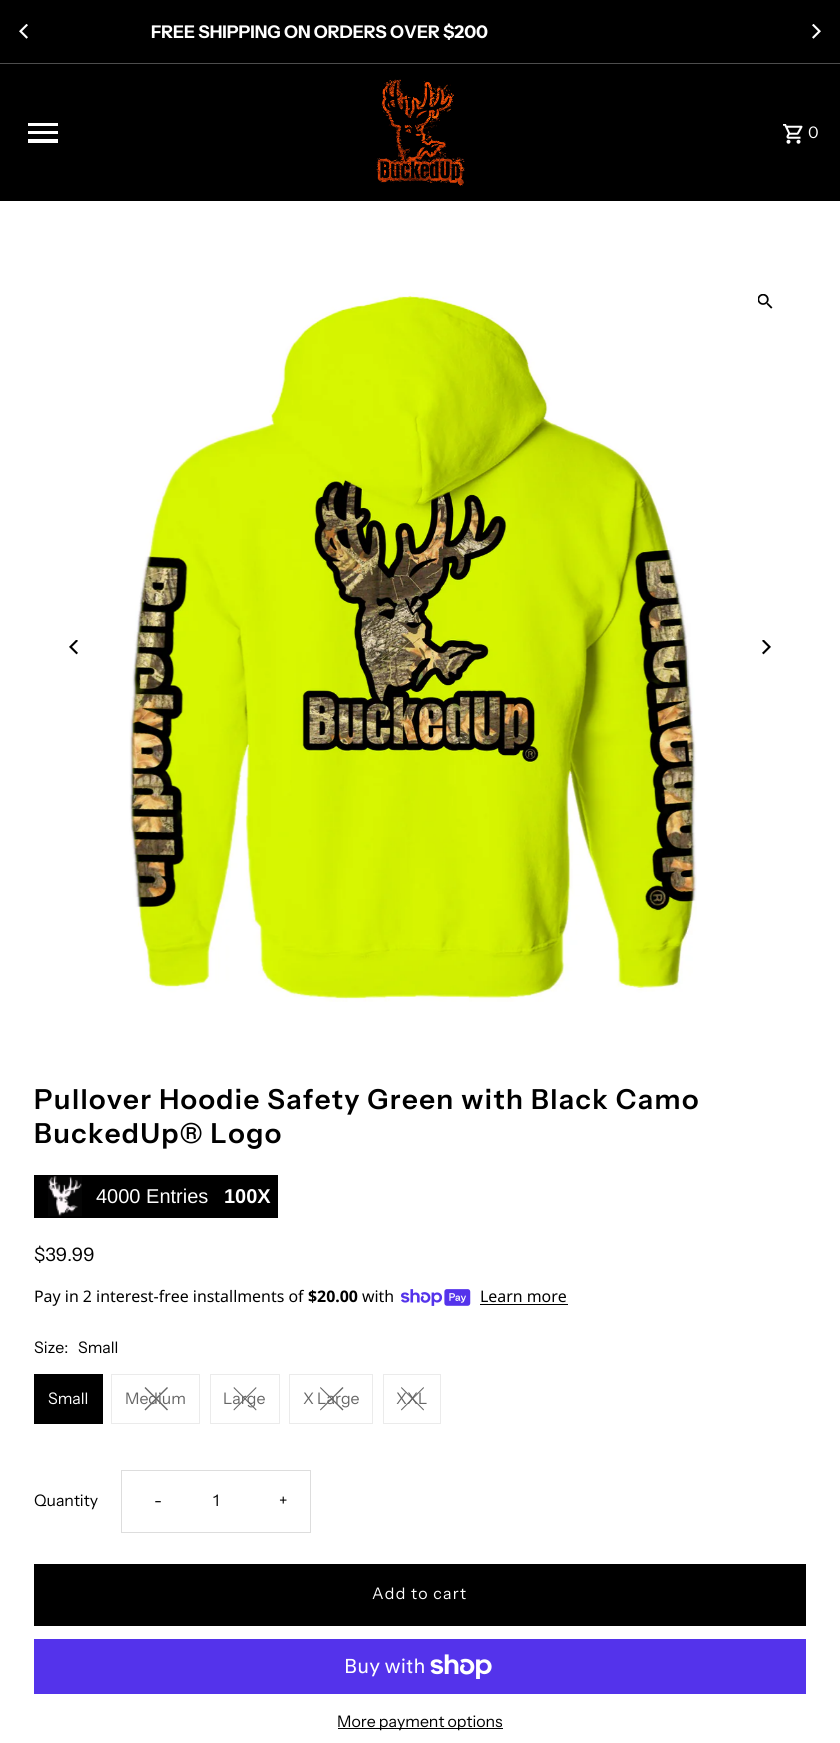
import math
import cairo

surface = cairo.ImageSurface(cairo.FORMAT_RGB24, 840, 1743)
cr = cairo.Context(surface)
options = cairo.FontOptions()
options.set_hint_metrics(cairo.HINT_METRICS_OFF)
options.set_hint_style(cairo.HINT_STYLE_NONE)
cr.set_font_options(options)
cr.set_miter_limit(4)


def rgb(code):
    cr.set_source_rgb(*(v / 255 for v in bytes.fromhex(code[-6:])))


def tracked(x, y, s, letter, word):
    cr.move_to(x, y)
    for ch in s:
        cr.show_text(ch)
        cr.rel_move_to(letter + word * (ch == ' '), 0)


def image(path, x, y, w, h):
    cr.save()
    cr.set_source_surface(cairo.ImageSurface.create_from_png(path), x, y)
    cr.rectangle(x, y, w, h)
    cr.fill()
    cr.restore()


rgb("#ffffff")
cr.paint()
rgb("#4d4d4d")
cr.rectangle(0, 63, 840, 1)
cr.fill()
rgb("#000000")
cr.rectangle(0, 0, 840, 63)
cr.fill()
image("img/1.png", 19, 24, 9, 15)
image("img/2.png", 812, 24, 9, 15)
for x, y, w, h, color in [
    (0, 64, 840, 137, "#000000"),
    (28, 139, 30, 4, "#ffffff"),
    (28, 131, 30, 3, "#ffffff"),
    (28, 123, 30, 3, "#ffffff"),
]:
    rgb(color)
    cr.rectangle(x, y, w, h)
    cr.fill()
image("img/3.png", 376, 79, 91, 107)
image("img/4.png", 783, 124, 20, 20)
image("img/5.png", 69, 640, 9, 15)
image("img/6.png", 129, 292, 568, 710)
image("img/7.png", 758, 294, 15, 15)
image("img/8.png", 762, 640, 9, 15)
rgb("#000000")
cr.rectangle(34, 1175, 244, 43)
cr.fill()
image("img/9.png", 48, 1176, 34, 41)
image("img/10.png", 401, 1289, 70, 17)
cr.rectangle(480, 1304, 88, 1)
cr.fill()
cr.rectangle(34, 1374, 69, 50)
cr.fill()
cr.rectangle(111.5, 1374.5, 88, 49)
rgb("#ebebeb")
cr.set_line_width(1)
cr.stroke()
rgb("#666666")
cr.new_path()
cr.move_to(167, 1387)
cr.line_to(168, 1388)
cr.line_to(145.5, 1410.5)
cr.line_to(144.5, 1409.5)
cr.close_path()
cr.fill()
cr.new_path()
cr.move_to(168, 1409.5)
cr.line_to(167, 1410.5)
cr.line_to(144.5, 1388)
cr.line_to(145.5, 1387)
cr.close_path()
cr.fill()
cr.rectangle(210.5, 1374.5, 69, 49)
rgb("#ebebeb")
cr.stroke()
rgb("#666666")
cr.new_path()
cr.move_to(256, 1387)
cr.line_to(256.5, 1388)
cr.line_to(234, 1410.5)
cr.line_to(233.5, 1409.5)
cr.close_path()
cr.fill()
cr.new_path()
cr.move_to(256.5, 1409.5)
cr.line_to(256, 1410.5)
cr.line_to(233.5, 1388)
cr.line_to(234, 1387)
cr.close_path()
cr.fill()
cr.rectangle(289.5, 1374.5, 83, 49)
rgb("#ebebeb")
cr.stroke()
rgb("#666666")
cr.new_path()
cr.move_to(342.5, 1387)
cr.line_to(343.5, 1388)
cr.line_to(320.5, 1410.5)
cr.line_to(320, 1409.5)
cr.close_path()
cr.fill()
cr.new_path()
cr.move_to(343.5, 1409.5)
cr.line_to(342.5, 1410.5)
cr.line_to(320, 1388)
cr.line_to(320.5, 1387)
cr.close_path()
cr.fill()
cr.rectangle(383.5, 1374.5, 57, 49)
rgb("#ebebeb")
cr.stroke()
rgb("#666666")
cr.new_path()
cr.move_to(423.5, 1387)
cr.line_to(424, 1388)
cr.line_to(401.5, 1410.5)
cr.line_to(401, 1409.5)
cr.close_path()
cr.fill()
cr.new_path()
cr.move_to(424, 1409.5)
cr.line_to(423.5, 1410.5)
cr.line_to(401, 1388)
cr.line_to(401.5, 1387)
cr.close_path()
cr.fill()
cr.rectangle(121.5, 1470.5, 189, 62)
rgb("#dddddd")
cr.stroke()
rgb("#000000")
cr.rectangle(34, 1564, 772, 62)
cr.fill()
rgb("#5433eb")
cr.rectangle(34, 1639, 772, 55)
cr.fill()
image("img/11.png", 430, 1654, 62, 25)
rgb("#000000")
cr.rectangle(338, 1728, 165, 1)
cr.fill()
cr.select_font_face("Instrument Sans", cairo.FONT_SLANT_NORMAL, cairo.FONT_WEIGHT_BOLD)
cr.set_font_size(17.5)
rgb("#ffffff")
cr.move_to(151, 38)
cr.show_text("FREE SHIPPING ON ORDERS OVER $200")
cr.select_font_face("Instrument Sans")
cr.set_font_size(15.9)
tracked(808, 138, "0", 1.25, 0)
cr.select_font_face("Instrument Sans SemiBold")
cr.set_font_size(27.6)
rgb("#000000")
tracked(34, 1109, "Pullover Hoodie Safety Green with Black Camo", 1.4, 0)
tracked(34, 1143, "BuckedUp® Logo", 1.4, 0)
cr.select_font_face("Liberation Sans")
cr.set_font_size(20)
rgb("#ffffff")
cr.move_to(96, 1203)
cr.show_text("4000 Entries")
cr.select_font_face("Liberation Sans", cairo.FONT_SLANT_NORMAL, cairo.FONT_WEIGHT_BOLD)
cr.move_to(224, 1203)
cr.show_text("100X")
cr.select_font_face("Instrument Sans")
cr.set_font_size(18.5)
rgb("#000000")
cr.move_to(34, 1261)
cr.show_text("$39.99")
cr.select_font_face("Noto Sans")
cr.set_font_size(15.9)
cr.move_to(34, 1302)
cr.show_text("Pay in 2 interest-free installments of")
cr.select_font_face("Noto Sans", cairo.FONT_SLANT_NORMAL, cairo.FONT_WEIGHT_BOLD)
cr.move_to(308, 1302)
cr.show_text("$20.00")
cr.select_font_face("Noto Sans")
cr.move_to(362, 1302)
cr.show_text("with")
cr.move_to(480, 1302)
cr.show_text("Learn more")
cr.select_font_face("Instrument Sans")
cr.move_to(34, 1353)
cr.show_text("Size:")
cr.move_to(78, 1353)
cr.show_text("Small")
rgb("#ffffff")
cr.move_to(48, 1404)
cr.show_text("Small")
rgb("#666666")
for x, y, s in [
    (125, 1404, "Medium"),
    (223, 1404, "Large"),
    (303, 1404, "X Large"),
    (396, 1404, "XXL"),
]:
    cr.move_to(x, y)
    cr.show_text(s)
rgb("#000000")
cr.move_to(34, 1506)
cr.show_text("Quantity")
tracked(154, 1506, "-", 1.25, 0)
cr.move_to(213, 1506)
cr.show_text("1")
tracked(279, 1506, "+", 1.25, 0)
rgb("#ffffff")
tracked(372, 1599, "Add to cart", 1.25, 0)
cr.select_font_face("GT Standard")
cr.set_font_size(20)
cr.move_to(344, 1673)
cr.show_text("Buy with")
cr.select_font_face("Instrument Sans")
cr.set_font_size(15.9)
rgb("#000000")
cr.move_to(337, 1727)
cr.show_text("More payment options")
surface.write_to_png("page.png")
